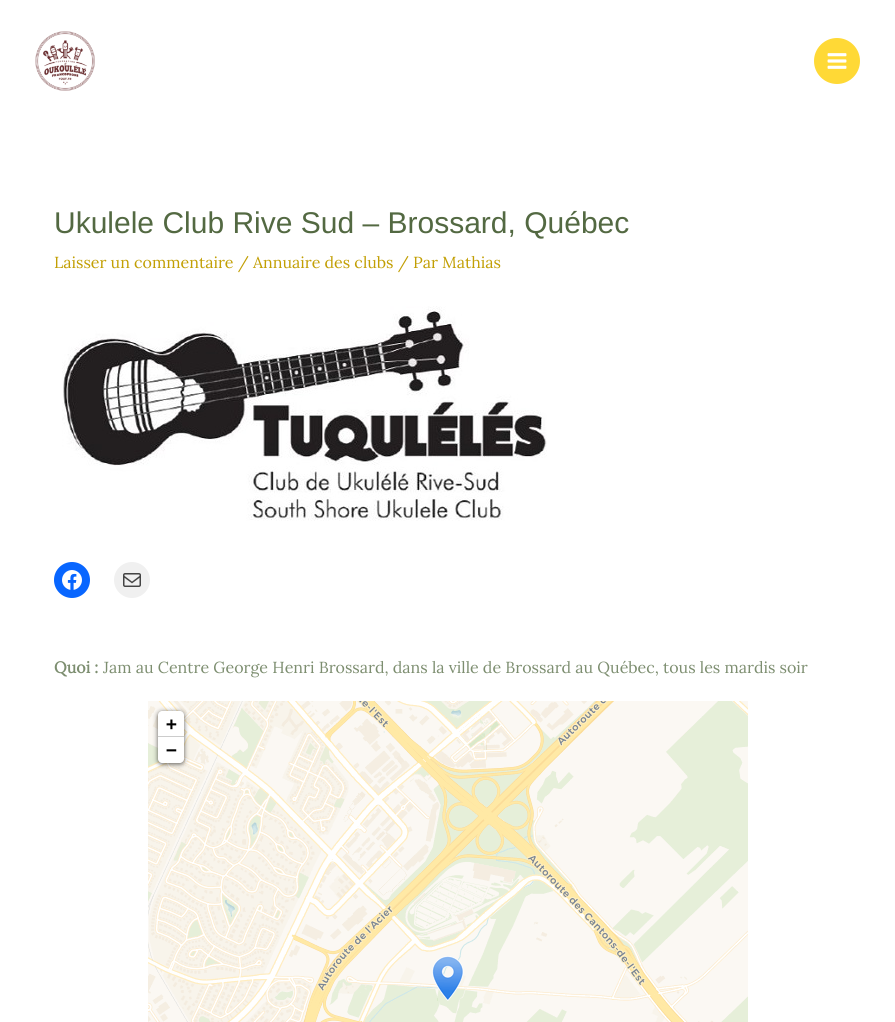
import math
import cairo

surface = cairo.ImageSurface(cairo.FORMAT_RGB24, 895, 1022)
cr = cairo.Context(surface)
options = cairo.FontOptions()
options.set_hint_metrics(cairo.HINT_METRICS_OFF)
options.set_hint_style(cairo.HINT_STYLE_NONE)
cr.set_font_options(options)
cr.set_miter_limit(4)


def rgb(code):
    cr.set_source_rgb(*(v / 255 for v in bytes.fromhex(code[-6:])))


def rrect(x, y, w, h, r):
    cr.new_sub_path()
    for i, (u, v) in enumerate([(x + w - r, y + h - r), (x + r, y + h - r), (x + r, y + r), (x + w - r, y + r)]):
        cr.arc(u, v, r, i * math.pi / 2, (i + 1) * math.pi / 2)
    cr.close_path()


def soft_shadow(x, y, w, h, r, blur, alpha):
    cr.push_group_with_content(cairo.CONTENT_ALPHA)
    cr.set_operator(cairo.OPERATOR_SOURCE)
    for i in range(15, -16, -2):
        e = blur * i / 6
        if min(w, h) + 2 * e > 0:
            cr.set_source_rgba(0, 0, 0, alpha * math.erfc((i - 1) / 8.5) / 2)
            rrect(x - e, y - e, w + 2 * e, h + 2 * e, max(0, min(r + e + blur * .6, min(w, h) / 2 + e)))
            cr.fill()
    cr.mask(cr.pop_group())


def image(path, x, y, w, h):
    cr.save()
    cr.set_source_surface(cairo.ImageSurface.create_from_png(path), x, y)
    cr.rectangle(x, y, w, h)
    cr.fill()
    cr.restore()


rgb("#ffffff")
cr.paint()
image("img/1.png", 35, 31, 60, 60)
rgb("#ffd936")
cr.arc(837, 61, 23, 0, 2 * math.pi)
cr.fill()
image("img/2.png", 827, 53, 20, 16)
image("img/3.png", 62, 306, 485, 215)
rgb("#0866ff")
cr.arc(72, 580, 18, 0, 2 * math.pi)
cr.fill()
image("img/4.png", 62, 570, 20, 20)
rgb("#f0f0f0")
cr.arc(132, 580, 18, 0, 2 * math.pi)
cr.fill()
image("img/5.png", 123, 573, 18, 14)
image("img/6.png", 148, 701, 38, 102)
image("img/7.png", 186, 701, 256, 102)
image("img/8.png", 442, 701, 256, 102)
image("img/9.png", 698, 701, 50, 102)
image("img/10.png", 148, 803, 38, 219)
image("img/11.png", 186, 803, 256, 219)
image("img/12.png", 442, 803, 256, 219)
image("img/13.png", 698, 803, 50, 219)
image("img/14.png", 432, 956, 32, 45)
rgb("#000000")
soft_shadow(158, 712, 26, 52, 4, 2.5, 0.65)
rgb("#ffffff")
cr.new_path()
cr.move_to(162, 711)
cr.line_to(180, 711)
cr.curve_to(182, 711, 184, 713, 184, 715)
cr.line_to(184, 737)
cr.line_to(158, 737)
cr.line_to(158, 715)
cr.curve_to(158, 713, 160, 711, 162, 711)
cr.close_path()
cr.fill()
rgb("#cccccc")
cr.rectangle(158, 736, 26, 1)
cr.fill()
rgb("#ffffff")
cr.new_path()
cr.move_to(158, 737)
cr.line_to(184, 737)
cr.line_to(184, 759)
cr.curve_to(184, 761, 182, 763, 180, 763)
cr.line_to(162, 763)
cr.curve_to(160, 763, 158, 761, 158, 759)
cr.close_path()
cr.fill()
cr.select_font_face("Liberation Sans")
cr.set_font_size(30)
rgb("#536942")
cr.move_to(54, 233)
cr.show_text("Ukulele Club Rive Sud – Brossard, Québec")
cr.select_font_face("Lora")
cr.set_font_size(16)
rgb("#c29f04")
cr.move_to(54, 268)
cr.show_text("Laisser un commentaire / Annuaire des clubs / Par Mathias")
cr.select_font_face("Lora", cairo.FONT_SLANT_NORMAL, cairo.FONT_WEIGHT_BOLD)
rgb("#7d8e70")
cr.move_to(54, 673)
cr.show_text("Quoi :")
cr.select_font_face("Lora")
cr.move_to(103, 673)
cr.show_text("Jam au Centre George Henri Brossard, dans la ville de Brossard au Québec, tous les mardis soir")
cr.select_font_face("DejaVu Sans Mono", cairo.FONT_SLANT_NORMAL, cairo.FONT_WEIGHT_BOLD)
cr.set_font_size(18)
rgb("#000000")
cr.move_to(166, 730)
cr.show_text("+")
cr.move_to(166, 756)
cr.show_text("−")
surface.write_to_png("page.png")
